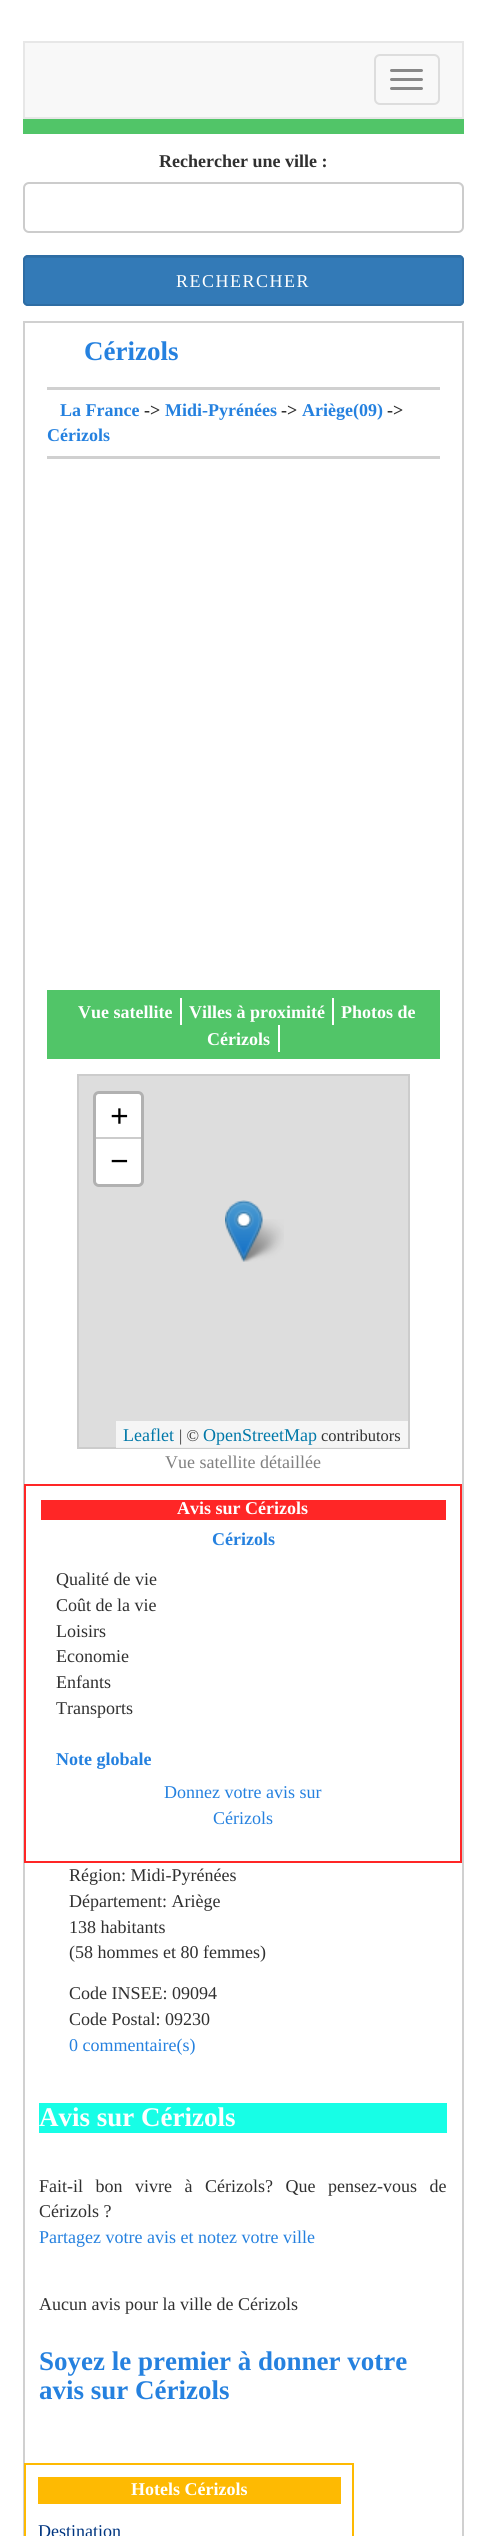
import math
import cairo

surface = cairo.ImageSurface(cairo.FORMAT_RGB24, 486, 2536)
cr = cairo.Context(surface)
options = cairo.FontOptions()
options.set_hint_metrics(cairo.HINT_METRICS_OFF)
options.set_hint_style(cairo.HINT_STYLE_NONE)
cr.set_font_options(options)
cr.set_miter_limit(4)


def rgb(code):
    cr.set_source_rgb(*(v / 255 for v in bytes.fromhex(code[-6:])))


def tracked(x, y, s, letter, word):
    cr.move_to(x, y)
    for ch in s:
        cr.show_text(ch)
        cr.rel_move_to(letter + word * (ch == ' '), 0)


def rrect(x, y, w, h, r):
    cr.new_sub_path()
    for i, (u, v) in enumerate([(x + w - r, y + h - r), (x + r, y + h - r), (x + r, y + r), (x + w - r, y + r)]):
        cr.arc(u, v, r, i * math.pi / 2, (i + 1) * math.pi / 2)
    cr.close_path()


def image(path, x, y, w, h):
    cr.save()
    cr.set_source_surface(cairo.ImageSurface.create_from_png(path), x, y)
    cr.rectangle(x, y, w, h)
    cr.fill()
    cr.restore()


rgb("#ffffff")
cr.paint()
rgb("#f8f8f8")
cr.rectangle(24, 42, 439, 76)
cr.fill_preserve()
rgb("#e7e7e7")
cr.stroke()
rrect(375, 55, 64, 49, 5)
rgb("#dddddd")
cr.stroke()
rgb("#888888")
rrect(390, 69, 33, 3, 1.5)
cr.fill()
rrect(390, 78, 33, 3, 1.5)
cr.fill()
rrect(390, 87, 33, 3, 1.5)
cr.fill()
rgb("#51c568")
cr.rectangle(23, 119, 441, 15)
cr.fill()
rgb("#ececec")
cr.new_path()
cr.move_to(28, 184)
cr.line_to(458, 184)
cr.curve_to(460, 184, 462, 187, 462, 189)
cr.curve_to(462, 186, 460, 183, 457, 183)
cr.line_to(29, 183)
cr.curve_to(26, 183, 24, 186, 24, 189)
cr.curve_to(24, 187, 26, 184, 28, 184)
cr.close_path()
cr.fill()
rrect(24, 183, 439, 49, 5)
rgb("#cccccc")
cr.stroke()
rgb("#337ab7")
rrect(23, 255, 441, 51, 5)
cr.fill()
rgb("#2f71a9")
cr.new_path()
cr.move_to(27, 258)
cr.line_to(459, 258)
cr.curve_to(461, 258, 462, 259, 462, 261)
cr.curve_to(462, 259, 461, 257, 459, 257)
cr.line_to(26, 257)
cr.line_to(24, 259)
cr.line_to(24, 261)
cr.curve_to(24, 259, 25, 258, 27, 258)
cr.close_path()
cr.fill()
rrect(24, 256, 439, 49, 4)
rgb("#2e6da4")
cr.stroke()
cr.rectangle(24, 322, 439, 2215)
rgb("#d0d0d0")
cr.stroke()
for x, y, w, h, color in [
    (47, 387, 393, 3, "#d0d0d0"),
    (47, 456, 393, 3, "#d0d0d0"),
    (47, 990, 393, 69, "#51c568"),
    (180, 998, 2, 27, "#ffffff"),
    (332, 998, 2, 27, "#ffffff"),
    (278, 1025, 2, 27, "#ffffff"),
]:
    rgb(color)
    cr.rectangle(x, y, w, h)
    cr.fill()
rgb("#dddddd")
cr.rectangle(78, 1075, 331, 373)
cr.fill_preserve()
rgb("#cccccc")
cr.stroke()
rrect(94.5, 1092.5, 48, 93, 4.5)
rgb("#b1b1b1")
cr.set_line_width(3)
cr.stroke()
rgb("#ffffff")
cr.new_path()
cr.move_to(99, 1094)
cr.line_to(138, 1094)
cr.curve_to(139.5, 1094, 141, 1095.5, 141, 1097)
cr.line_to(141, 1139)
cr.line_to(96, 1139)
cr.line_to(96, 1097)
cr.curve_to(96, 1095.5, 97.5, 1094, 99, 1094)
cr.close_path()
cr.fill()
rgb("#cccccc")
cr.rectangle(96, 1137, 45, 2)
cr.fill()
rgb("#ffffff")
cr.new_path()
cr.move_to(96, 1139)
cr.line_to(141, 1139)
cr.line_to(141, 1181)
cr.curve_to(141, 1182.5, 139.5, 1184, 138, 1184)
cr.line_to(99, 1184)
cr.curve_to(97.5, 1184, 96, 1182.5, 96, 1181)
cr.close_path()
cr.fill()
cr.set_source_rgba(1, 1, 1, 0.7)
cr.rectangle(116, 1421, 292, 27)
cr.fill()
image("img/2.png", 238, 1219, 46, 43)
image("img/1.png", 225, 1200, 38, 62)
cr.rectangle(25, 1485, 436, 377)
rgb("#ff2626")
cr.set_line_width(2)
cr.stroke()
cr.rectangle(41, 1500, 405, 20)
cr.fill()
rgb("#17fee6")
cr.rectangle(39, 2103, 408, 30)
cr.fill()
cr.rectangle(25, 2464, 328, 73)
rgb("#feba02")
cr.stroke()
cr.rectangle(38, 2477, 303, 27)
cr.fill()
cr.select_font_face("Liberation Serif", cairo.FONT_SLANT_NORMAL, cairo.FONT_WEIGHT_BOLD)
cr.set_font_size(18)
rgb("#303030")
cr.move_to(159, 167)
cr.show_text("Rechercher une ville :")
cr.select_font_face("Liberation Serif")
rgb("#ffffff")
tracked(176, 287, "RECHERCHER", 1.5, 0)
cr.select_font_face("Liberation Serif", cairo.FONT_SLANT_NORMAL, cairo.FONT_WEIGHT_BOLD)
cr.set_font_size(27)
rgb("#2581df")
cr.move_to(84, 360)
cr.show_text("Cérizols")
cr.set_font_size(18)
cr.move_to(60, 416)
cr.show_text("La France")
rgb("#303030")
cr.move_to(144, 416)
cr.show_text("->")
rgb("#2581df")
cr.move_to(165, 416)
cr.show_text("Midi-Pyrénées")
rgb("#303030")
cr.move_to(281, 416)
cr.show_text("->")
rgb("#2581df")
cr.move_to(302, 416)
cr.show_text("Ariège(09)")
rgb("#303030")
cr.move_to(387, 416)
cr.show_text("->")
rgb("#2581df")
cr.move_to(47, 441)
cr.show_text("Cérizols")
rgb("#ffffff")
for x, y, s in [
    (78, 1018, "Vue satellite"),
    (189, 1018, "Villes à proximité"),
    (341, 1018, "Photos de"),
    (207, 1045, "Cérizols"),
]:
    cr.move_to(x, y)
    cr.show_text(s)
cr.set_font_size(33)
rgb("#000000")
cr.move_to(110, 1127)
cr.show_text("+")
cr.move_to(110, 1172)
cr.show_text("−")
cr.select_font_face("Liberation Serif")
cr.set_font_size(18)
rgb("#0078a8")
cr.move_to(123, 1441)
cr.show_text("Leaflet")
cr.set_font_size(16.5)
rgb("#303030")
cr.move_to(179, 1441)
cr.show_text("| ©")
cr.set_font_size(18)
rgb("#0078a8")
cr.move_to(203, 1441)
cr.show_text("OpenStreetMap")
cr.set_font_size(16.5)
rgb("#303030")
cr.move_to(321, 1441)
cr.show_text("contributors")
cr.set_font_size(18)
rgb("#808080")
cr.move_to(165, 1468)
cr.show_text("Vue satellite détaillée")
cr.select_font_face("Liberation Serif", cairo.FONT_SLANT_NORMAL, cairo.FONT_WEIGHT_BOLD)
rgb("#ffffff")
cr.move_to(177, 1514)
cr.show_text("Avis sur Cérizols")
rgb("#2581df")
cr.move_to(212, 1545)
cr.show_text("Cérizols")
cr.select_font_face("Liberation Serif")
rgb("#303030")
for x, y, s in [
    (56, 1585, "Qualité de vie"),
    (56, 1611, "Coût de la vie"),
    (56, 1637, "Loisirs"),
    (56, 1662, "Economie"),
    (56, 1688, "Enfants"),
    (56, 1714, "Transports"),
]:
    cr.move_to(x, y)
    cr.show_text(s)
cr.select_font_face("Liberation Serif", cairo.FONT_SLANT_NORMAL, cairo.FONT_WEIGHT_BOLD)
rgb("#2581df")
cr.move_to(56, 1765)
cr.show_text("Note globale")
cr.select_font_face("Liberation Serif")
cr.move_to(164, 1798)
cr.show_text("Donnez votre avis sur")
cr.move_to(213, 1824)
cr.show_text("Cérizols")
rgb("#303030")
for x, y, s in [
    (69, 1881, "Région: Midi-Pyrénées"),
    (69, 1907, "Département: Ariège"),
    (69, 1933, "138 habitants"),
    (69, 1958, "(58 hommes et 80 femmes)"),
    (69, 1999, "Code INSEE: 09094"),
    (69, 2025, "Code Postal: 09230"),
]:
    cr.move_to(x, y)
    cr.show_text(s)
rgb("#2581df")
cr.move_to(69, 2051)
cr.show_text("0 commentaire(s)")
cr.select_font_face("Liberation Serif", cairo.FONT_SLANT_NORMAL, cairo.FONT_WEIGHT_BOLD)
cr.set_font_size(27)
rgb("#ffffff")
cr.move_to(39, 2126)
cr.show_text("Avis sur Cérizols")
cr.select_font_face("Liberation Serif")
cr.set_font_size(18)
rgb("#303030")
tracked(39, 2192, "Fait-il bon vivre à", 0, 8)
tracked(205, 2192, "Cérizols? Que pensez-vous de", 0, 8)
cr.move_to(39, 2217)
cr.show_text("Cérizols ?")
rgb("#2581df")
cr.move_to(39, 2243)
cr.show_text("Partagez votre avis et notez votre ville")
rgb("#303030")
cr.move_to(39, 2310)
cr.show_text("Aucun avis pour la ville de Cérizols")
cr.select_font_face("Liberation Serif", cairo.FONT_SLANT_NORMAL, cairo.FONT_WEIGHT_BOLD)
cr.set_font_size(27)
rgb("#2581df")
cr.move_to(39, 2370)
cr.show_text("Soyez le premier à donner votre")
cr.move_to(39, 2399)
cr.show_text("avis sur Cérizols")
cr.set_font_size(18)
rgb("#ffffff")
cr.move_to(131, 2495)
cr.show_text("Hotels Cérizols")
cr.select_font_face("Liberation Serif")
rgb("#003580")
cr.move_to(38, 2537)
cr.show_text("Destination")
surface.write_to_png("page.png")
